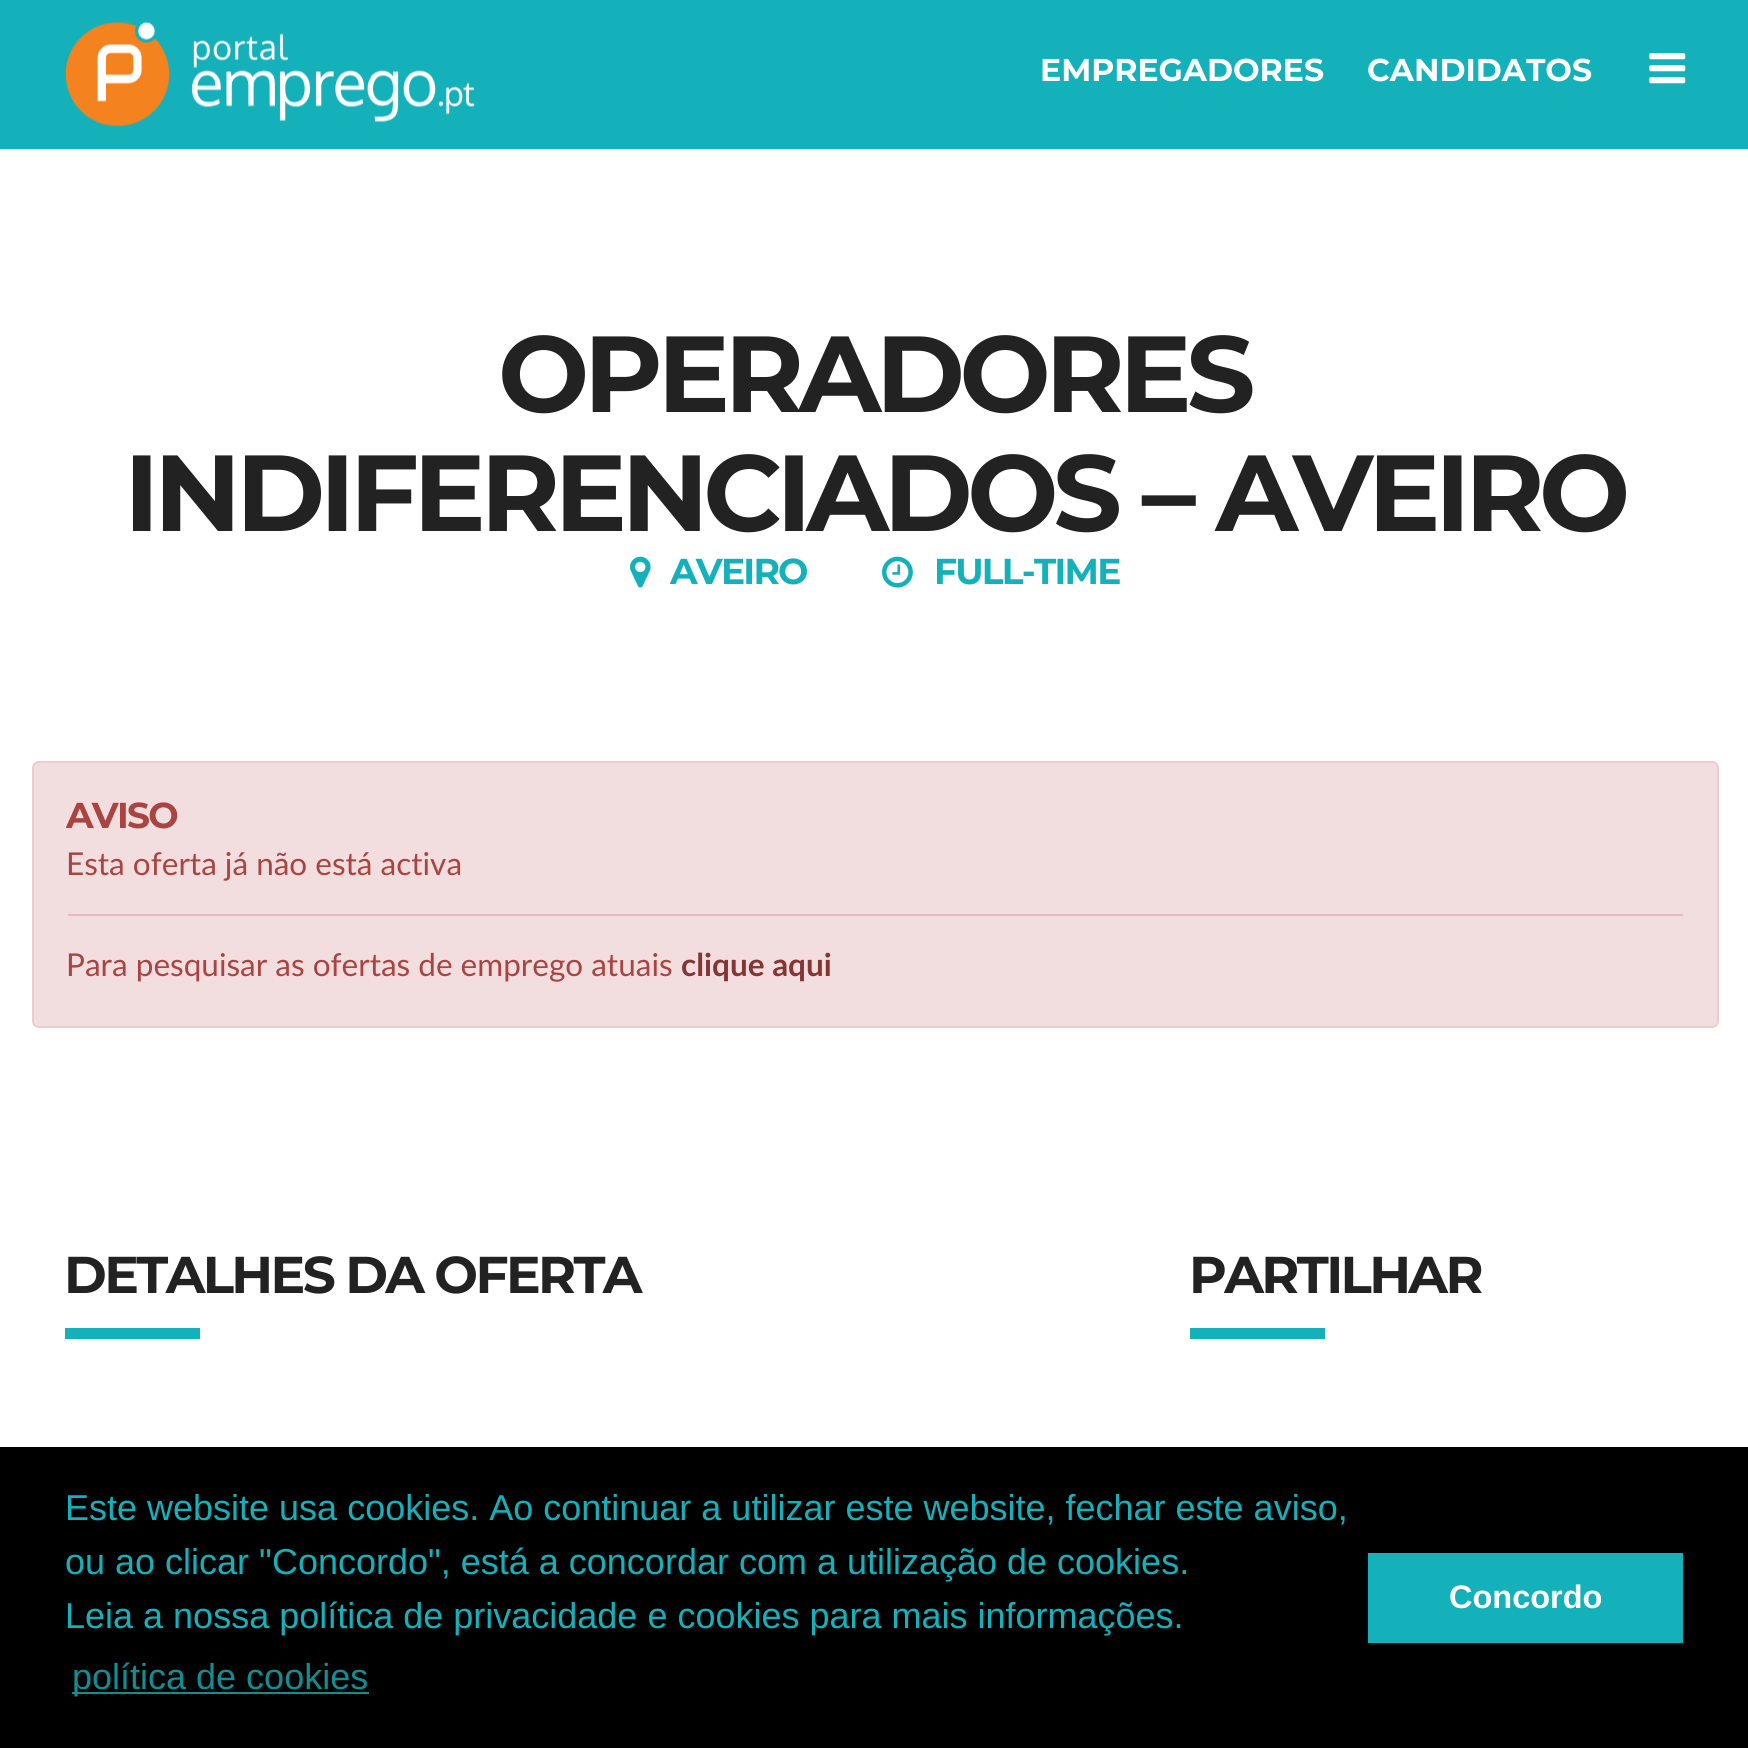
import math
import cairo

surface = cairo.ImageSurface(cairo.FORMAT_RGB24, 1748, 1748)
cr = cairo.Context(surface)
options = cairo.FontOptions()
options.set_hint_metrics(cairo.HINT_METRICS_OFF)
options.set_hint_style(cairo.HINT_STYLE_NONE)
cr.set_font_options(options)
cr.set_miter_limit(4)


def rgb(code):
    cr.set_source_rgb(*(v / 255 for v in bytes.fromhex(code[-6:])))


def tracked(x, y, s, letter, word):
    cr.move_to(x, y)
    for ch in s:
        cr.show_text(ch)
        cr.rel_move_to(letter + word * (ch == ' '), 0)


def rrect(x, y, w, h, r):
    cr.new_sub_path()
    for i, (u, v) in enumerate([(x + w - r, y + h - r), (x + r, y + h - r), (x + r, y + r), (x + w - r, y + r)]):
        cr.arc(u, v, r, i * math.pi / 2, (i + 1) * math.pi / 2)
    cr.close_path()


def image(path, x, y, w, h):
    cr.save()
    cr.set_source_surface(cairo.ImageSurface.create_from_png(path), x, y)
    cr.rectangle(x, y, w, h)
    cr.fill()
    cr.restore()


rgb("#ffffff")
cr.paint()
rgb("#14b1bb")
cr.rectangle(0, 0, 1748, 149)
cr.fill()
image("img/1.png", 65, 22, 410, 105)
image("img/2.png", 1649, 53, 37, 31)
image("img/3.png", 630, 556, 21, 32)
image("img/4.png", 882, 556, 31, 32)
rgb("#f2dede")
rrect(33, 762, 1685, 265, 6)
cr.fill_preserve()
rgb("#ebccd1")
cr.stroke()
for x, y, w, h, color in [
    (68, 914, 1615, 2, "#e4b9c0"),
    (65, 1328, 135, 11, "#14b1bb"),
    (1190, 1328, 135, 11, "#14b1bb"),
    (0, 1447, 1748, 301, "#000000"),
    (72, 1692, 297, 2, "#108e96"),
    (1368, 1553, 315, 90, "#14b1bb"),
]:
    rgb(color)
    cr.rectangle(x, y, w, h)
    cr.fill()
cr.select_font_face("Montserrat", cairo.FONT_SLANT_NORMAL, cairo.FONT_WEIGHT_BOLD)
cr.set_font_size(31.5)
rgb("#ffffff")
cr.move_to(1040, 81)
cr.show_text("EMPREGADORES")
cr.move_to(1367, 81)
cr.show_text("CANDIDATOS")
cr.set_font_size(108)
rgb("#222222")
tracked(498, 412, "OPERADORES", -5.4, 0)
tracked(124, 531, "INDIFERENCIADOS – AVEIRO", -5.4, 0)
cr.set_font_size(36)
rgb("#14b1bb")
tracked(670, 584, "AVEIRO", -1.75, 0)
tracked(934, 584, "FULL-TIME", -1.75, 0)
rgb("#a94442")
tracked(66, 828, "AVISO", -1.75, 0)
cr.select_font_face("Lato")
cr.set_font_size(31.5)
cr.move_to(66, 875)
cr.show_text("Esta oferta já não está activa")
cr.move_to(66, 976)
cr.show_text("Para pesquisar as ofertas de emprego atuais")
cr.select_font_face("Lato", cairo.FONT_SLANT_NORMAL, cairo.FONT_WEIGHT_BOLD)
rgb("#843534")
cr.move_to(681, 976)
cr.show_text("clique aqui")
cr.select_font_face("Montserrat", cairo.FONT_SLANT_NORMAL, cairo.FONT_WEIGHT_BOLD)
cr.set_font_size(51.75)
rgb("#222222")
tracked(64, 1293, "DETALHES DA OFERTA", -2.6, 0)
tracked(1189, 1293, "PARTILHAR", -2.6, 0)
cr.select_font_face("Liberation Sans")
cr.set_font_size(36)
rgb("#14b1bb")
for x, y, s in [
    (65, 1520, "Este website usa cookies. Ao continuar a utilizar este website, fechar este aviso,"),
    (65, 1574, "ou ao clicar \"Concordo\", está a concordar com a utilização de cookies."),
    (65, 1628, "Leia a nossa política de privacidade e cookies para mais informações."),
]:
    cr.move_to(x, y)
    cr.show_text(s)
rgb("#108e96")
cr.move_to(72, 1689)
cr.show_text("política de cookies")
cr.select_font_face("Liberation Sans", cairo.FONT_SLANT_NORMAL, cairo.FONT_WEIGHT_BOLD)
cr.set_font_size(32.5)
rgb("#ffffff")
cr.move_to(1449, 1608)
cr.show_text("Concordo")
surface.write_to_png("page.png")
